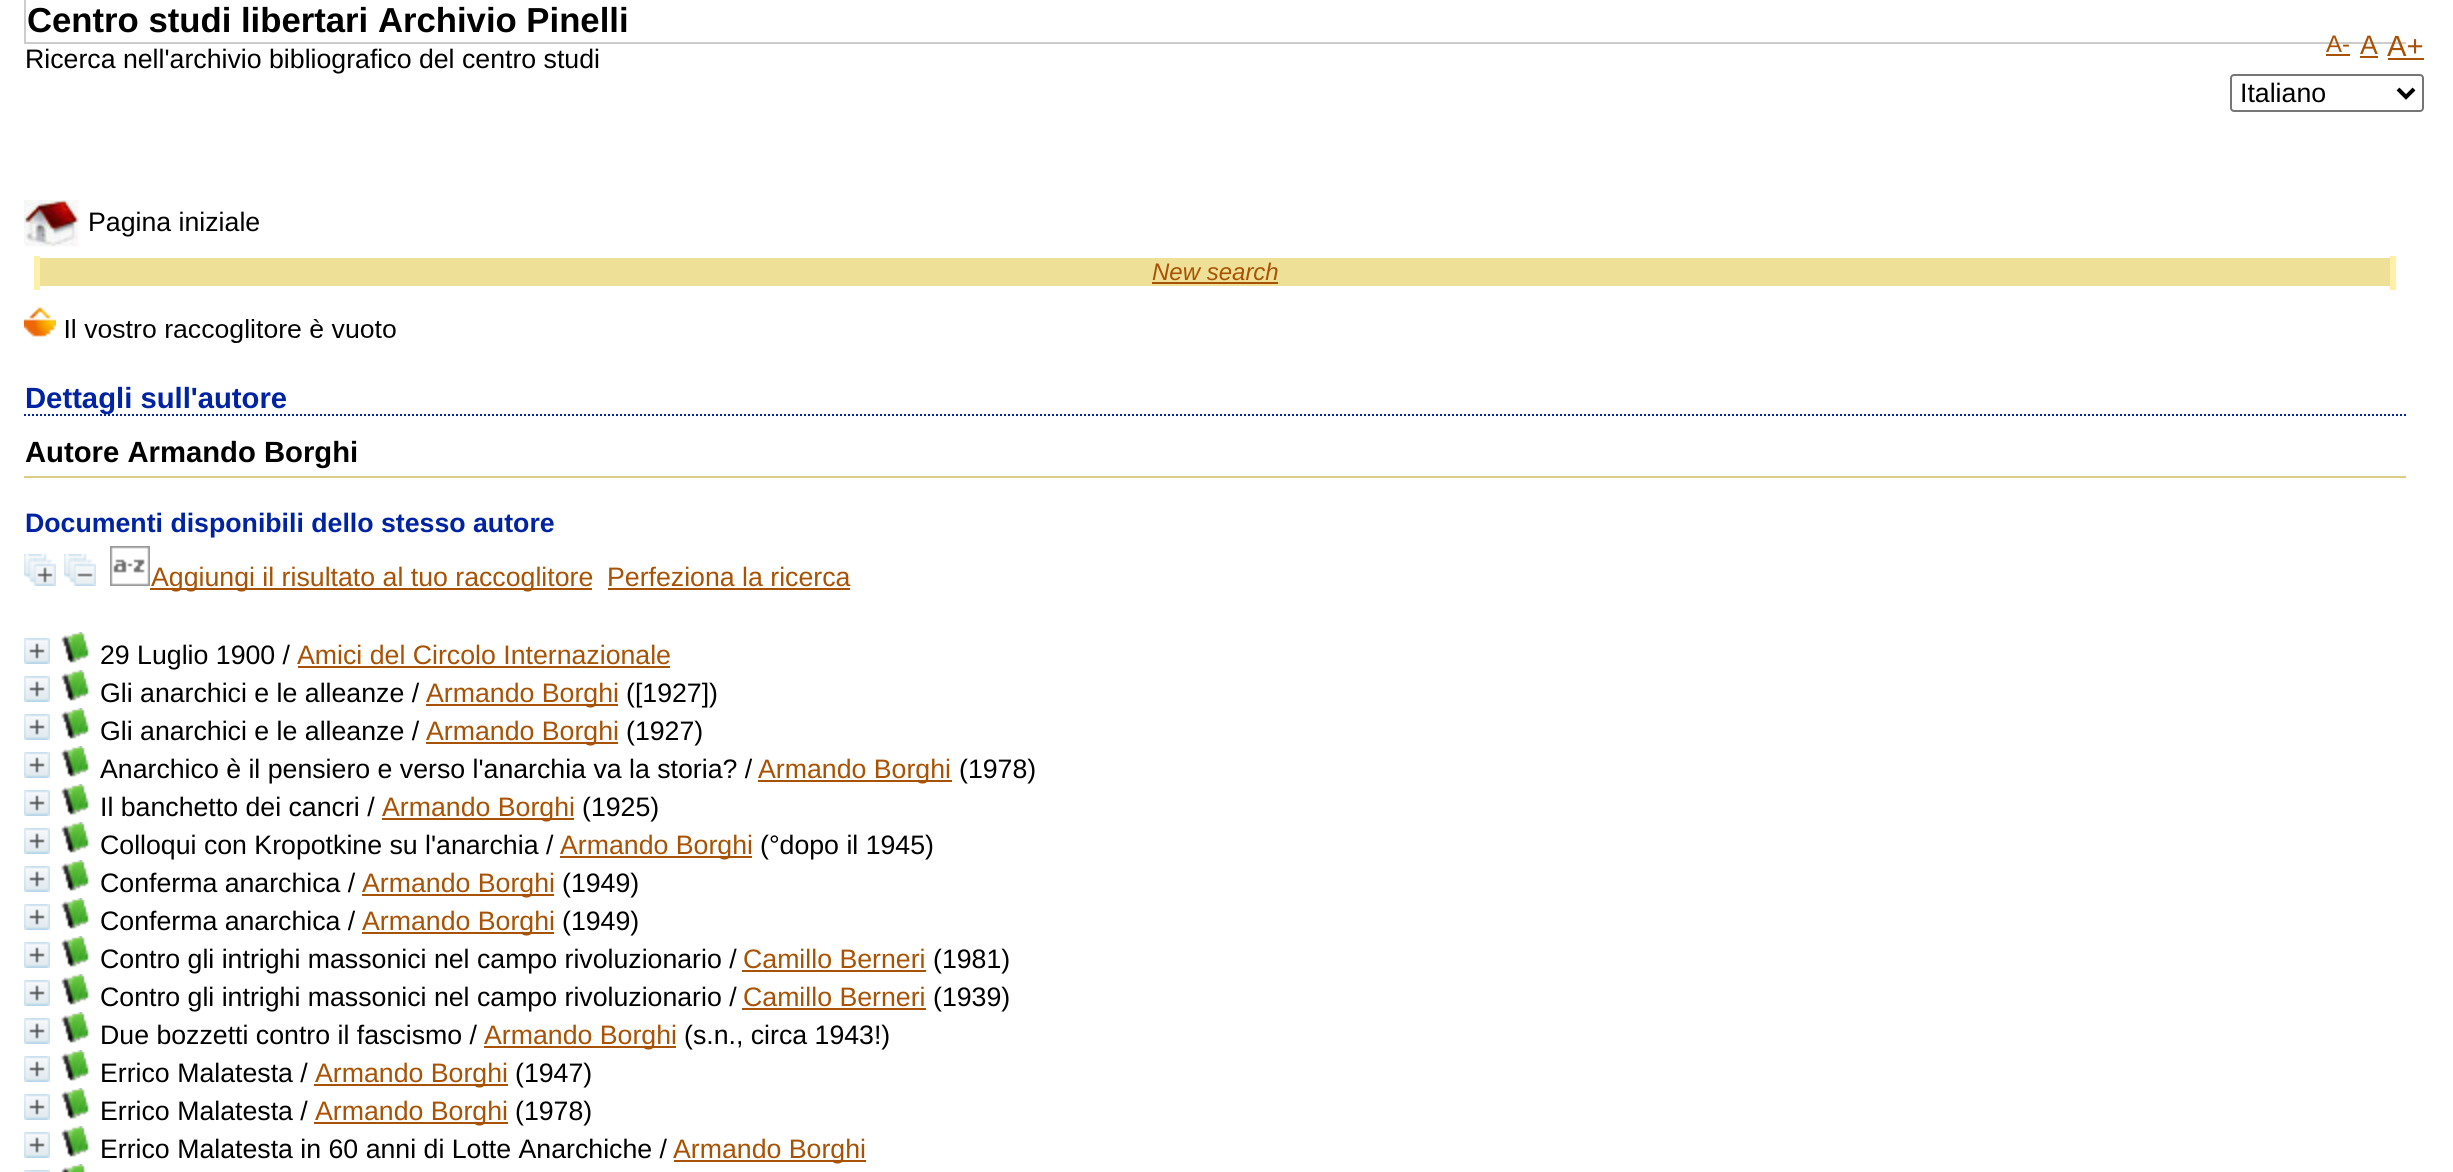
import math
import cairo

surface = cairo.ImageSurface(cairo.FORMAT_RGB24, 2453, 1172)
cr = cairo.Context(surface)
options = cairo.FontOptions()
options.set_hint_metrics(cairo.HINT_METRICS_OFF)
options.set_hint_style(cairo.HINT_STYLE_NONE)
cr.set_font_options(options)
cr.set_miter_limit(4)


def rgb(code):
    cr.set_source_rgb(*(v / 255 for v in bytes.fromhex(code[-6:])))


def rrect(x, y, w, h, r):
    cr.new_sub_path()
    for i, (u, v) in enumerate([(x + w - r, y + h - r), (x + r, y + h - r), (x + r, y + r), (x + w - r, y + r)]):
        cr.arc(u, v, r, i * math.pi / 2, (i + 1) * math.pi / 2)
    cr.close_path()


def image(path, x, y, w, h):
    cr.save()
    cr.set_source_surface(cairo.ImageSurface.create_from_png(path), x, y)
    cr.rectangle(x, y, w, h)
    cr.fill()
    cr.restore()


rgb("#ffffff")
cr.paint()
for x, y, w, h, color in [
    (24, 42, 2382, 2, "#cccccc"),
    (24, 0, 2, 44, "#cccccc"),
    (2326, 54, 24, 2, "#a75204"),
    (2360, 56, 18, 2, "#a75204"),
    (2388, 58, 36, 2, "#a75204"),
]:
    rgb(color)
    cr.rectangle(x, y, w, h)
    cr.fill()
rrect(2231, 75, 192, 36, 3)
rgb("#767676")
cr.stroke()
cr.new_path()
cr.move_to(2398, 89)
cr.line_to(2406, 97)
cr.line_to(2414, 89)
rgb("#000000")
cr.set_line_width(4)
cr.stroke()
image("img/1.png", 24, 200, 56, 47)
for x, y, w, h, color in [
    (40, 258, 2350, 28, "#efe097"),
    (2390, 256, 6, 34, "#fff0a7"),
    (34, 256, 6, 34, "#fff0a7"),
    (1152, 282, 126, 2, "#a75204"),
]:
    rgb(color)
    cr.rectangle(x, y, w, h)
    cr.fill()
image("img/2.png", 24, 307, 372, 36)
cr.new_path()
cr.move_to(24, 415)
cr.line_to(2406, 415)
rgb("#0023a4")
cr.set_line_width(2)
cr.set_dash([2, 2])
cr.stroke()
rgb("#ddcb8c")
cr.rectangle(24, 476, 2382, 2)
cr.fill()
image("img/3.png", 24, 554, 32, 32)
image("img/4.png", 64, 554, 32, 32)
image("img/5.png", 110, 546, 40, 40)
rgb("#a75204")
cr.rectangle(150, 588, 442, 2)
cr.fill()
cr.rectangle(608, 588, 242, 2)
cr.fill()
image("img/6.png", 24, 638, 26, 26)
image("img/7.png", 61, 632, 28, 31)
cr.rectangle(298, 666, 372, 2)
cr.fill()
image("img/6.png", 24, 676, 26, 26)
image("img/7.png", 61, 670, 28, 31)
cr.rectangle(426, 704, 192, 2)
cr.fill()
image("img/6.png", 24, 714, 26, 26)
image("img/7.png", 61, 708, 28, 31)
cr.rectangle(426, 742, 192, 2)
cr.fill()
image("img/6.png", 24, 752, 26, 26)
image("img/7.png", 61, 746, 28, 31)
cr.rectangle(758, 780, 194, 2)
cr.fill()
image("img/6.png", 24, 790, 26, 26)
image("img/7.png", 61, 784, 28, 31)
cr.rectangle(382, 818, 192, 2)
cr.fill()
image("img/6.png", 24, 828, 26, 26)
image("img/7.png", 61, 822, 28, 31)
cr.rectangle(560, 856, 192, 2)
cr.fill()
image("img/6.png", 24, 866, 26, 26)
image("img/7.png", 61, 860, 28, 31)
cr.rectangle(362, 894, 192, 2)
cr.fill()
image("img/6.png", 24, 904, 26, 26)
image("img/7.png", 61, 898, 28, 31)
cr.rectangle(362, 932, 192, 2)
cr.fill()
image("img/6.png", 24, 942, 26, 26)
image("img/7.png", 61, 936, 28, 31)
cr.rectangle(742, 970, 184, 2)
cr.fill()
image("img/6.png", 24, 980, 26, 26)
image("img/7.png", 61, 974, 28, 31)
cr.rectangle(742, 1008, 184, 2)
cr.fill()
image("img/6.png", 24, 1018, 26, 26)
image("img/7.png", 61, 1012, 28, 31)
cr.rectangle(484, 1046, 192, 2)
cr.fill()
image("img/6.png", 24, 1056, 26, 26)
image("img/7.png", 61, 1050, 28, 31)
cr.rectangle(314, 1084, 194, 2)
cr.fill()
image("img/6.png", 24, 1094, 26, 26)
image("img/7.png", 61, 1088, 28, 31)
cr.rectangle(314, 1122, 194, 2)
cr.fill()
image("img/6.png", 24, 1132, 26, 26)
image("img/7.png", 61, 1126, 28, 31)
cr.rectangle(674, 1160, 192, 2)
cr.fill()
image("img/8.png", 24, 1170, 26, 2)
image("img/9.png", 61, 1164, 26, 8)
cr.select_font_face("Liberation Sans", cairo.FONT_SLANT_NORMAL, cairo.FONT_WEIGHT_BOLD)
cr.set_font_size(34.7)
rgb("#000000")
cr.move_to(27, 32)
cr.show_text("Centro studi libertari Archivio Pinelli")
cr.select_font_face("Liberation Sans")
cr.set_font_size(26.7)
cr.move_to(25, 68)
cr.show_text("Ricerca nell'archivio bibliografico del centro studi")
cr.set_font_size(24)
rgb("#a75204")
cr.move_to(2326, 52)
cr.show_text("A-")
cr.set_font_size(26.7)
cr.move_to(2360, 54)
cr.show_text("A")
cr.set_font_size(29.25)
cr.move_to(2387, 56)
cr.show_text("A+")
cr.set_font_size(26.7)
rgb("#000000")
cr.move_to(2240, 102)
cr.show_text("Italiano")
cr.move_to(88, 231)
cr.show_text("Pagina iniziale")
cr.select_font_face("Liberation Sans", cairo.FONT_SLANT_ITALIC)
cr.set_font_size(24)
rgb("#a75204")
cr.move_to(1152, 280)
cr.show_text("New search")
cr.select_font_face("Liberation Sans", cairo.FONT_SLANT_NORMAL, cairo.FONT_WEIGHT_BOLD)
cr.set_font_size(29.25)
rgb("#0023a4")
cr.move_to(25, 408)
cr.show_text("Dettagli sull'autore")
rgb("#000000")
cr.move_to(25, 462)
cr.show_text("Autore Armando Borghi")
cr.set_font_size(26.7)
rgb("#0023a4")
cr.move_to(25, 532)
cr.show_text("Documenti disponibili dello stesso autore")
cr.select_font_face("Liberation Sans")
rgb("#a75204")
cr.move_to(151, 586)
cr.show_text("Aggiungi il risultato al tuo raccoglitore")
cr.move_to(607, 586)
cr.show_text("Perfeziona la ricerca")
rgb("#000000")
cr.move_to(100, 664)
cr.show_text("29 Luglio 1900 /")
rgb("#a75204")
cr.move_to(297, 664)
cr.show_text("Amici del Circolo Internazionale")
rgb("#000000")
cr.move_to(100, 702)
cr.show_text("Gli anarchici e le alleanze /")
rgb("#a75204")
cr.move_to(426, 702)
cr.show_text("Armando Borghi")
rgb("#000000")
cr.move_to(626, 702)
cr.show_text("([1927])")
cr.move_to(100, 740)
cr.show_text("Gli anarchici e le alleanze /")
rgb("#a75204")
cr.move_to(426, 740)
cr.show_text("Armando Borghi")
rgb("#000000")
cr.move_to(626, 740)
cr.show_text("(1927)")
cr.move_to(100, 778)
cr.show_text("Anarchico è il pensiero e verso l'anarchia va la storia? /")
rgb("#a75204")
cr.move_to(758, 778)
cr.show_text("Armando Borghi")
rgb("#000000")
cr.move_to(959, 778)
cr.show_text("(1978)")
cr.move_to(100, 816)
cr.show_text("Il banchetto dei cancri /")
rgb("#a75204")
cr.move_to(382, 816)
cr.show_text("Armando Borghi")
rgb("#000000")
cr.move_to(582, 816)
cr.show_text("(1925)")
cr.move_to(100, 854)
cr.show_text("Colloqui con Kropotkine su l'anarchia /")
rgb("#a75204")
cr.move_to(560, 854)
cr.show_text("Armando Borghi")
rgb("#000000")
cr.move_to(760, 854)
cr.show_text("(°dopo il 1945)")
cr.move_to(100, 892)
cr.show_text("Conferma anarchica /")
rgb("#a75204")
cr.move_to(362, 892)
cr.show_text("Armando Borghi")
rgb("#000000")
cr.move_to(562, 892)
cr.show_text("(1949)")
cr.move_to(100, 930)
cr.show_text("Conferma anarchica /")
rgb("#a75204")
cr.move_to(362, 930)
cr.show_text("Armando Borghi")
rgb("#000000")
cr.move_to(562, 930)
cr.show_text("(1949)")
cr.move_to(100, 968)
cr.show_text("Contro gli intrighi massonici nel campo rivoluzionario /")
rgb("#a75204")
cr.move_to(743, 968)
cr.show_text("Camillo Berneri")
rgb("#000000")
cr.move_to(933, 968)
cr.show_text("(1981)")
cr.move_to(100, 1006)
cr.show_text("Contro gli intrighi massonici nel campo rivoluzionario /")
rgb("#a75204")
cr.move_to(743, 1006)
cr.show_text("Camillo Berneri")
rgb("#000000")
cr.move_to(933, 1006)
cr.show_text("(1939)")
cr.move_to(100, 1044)
cr.show_text("Due bozzetti contro il fascismo /")
rgb("#a75204")
cr.move_to(484, 1044)
cr.show_text("Armando Borghi")
rgb("#000000")
cr.move_to(684, 1044)
cr.show_text("(s.n., circa 1943!)")
cr.move_to(100, 1082)
cr.show_text("Errico Malatesta /")
rgb("#a75204")
cr.move_to(315, 1082)
cr.show_text("Armando Borghi")
rgb("#000000")
cr.move_to(515, 1082)
cr.show_text("(1947)")
cr.move_to(100, 1120)
cr.show_text("Errico Malatesta /")
rgb("#a75204")
cr.move_to(315, 1120)
cr.show_text("Armando Borghi")
rgb("#000000")
cr.move_to(515, 1120)
cr.show_text("(1978)")
cr.move_to(100, 1158)
cr.show_text("Errico Malatesta in 60 anni di Lotte Anarchiche /")
rgb("#a75204")
cr.move_to(673, 1158)
cr.show_text("Armando Borghi")
surface.write_to_png("page.png")
